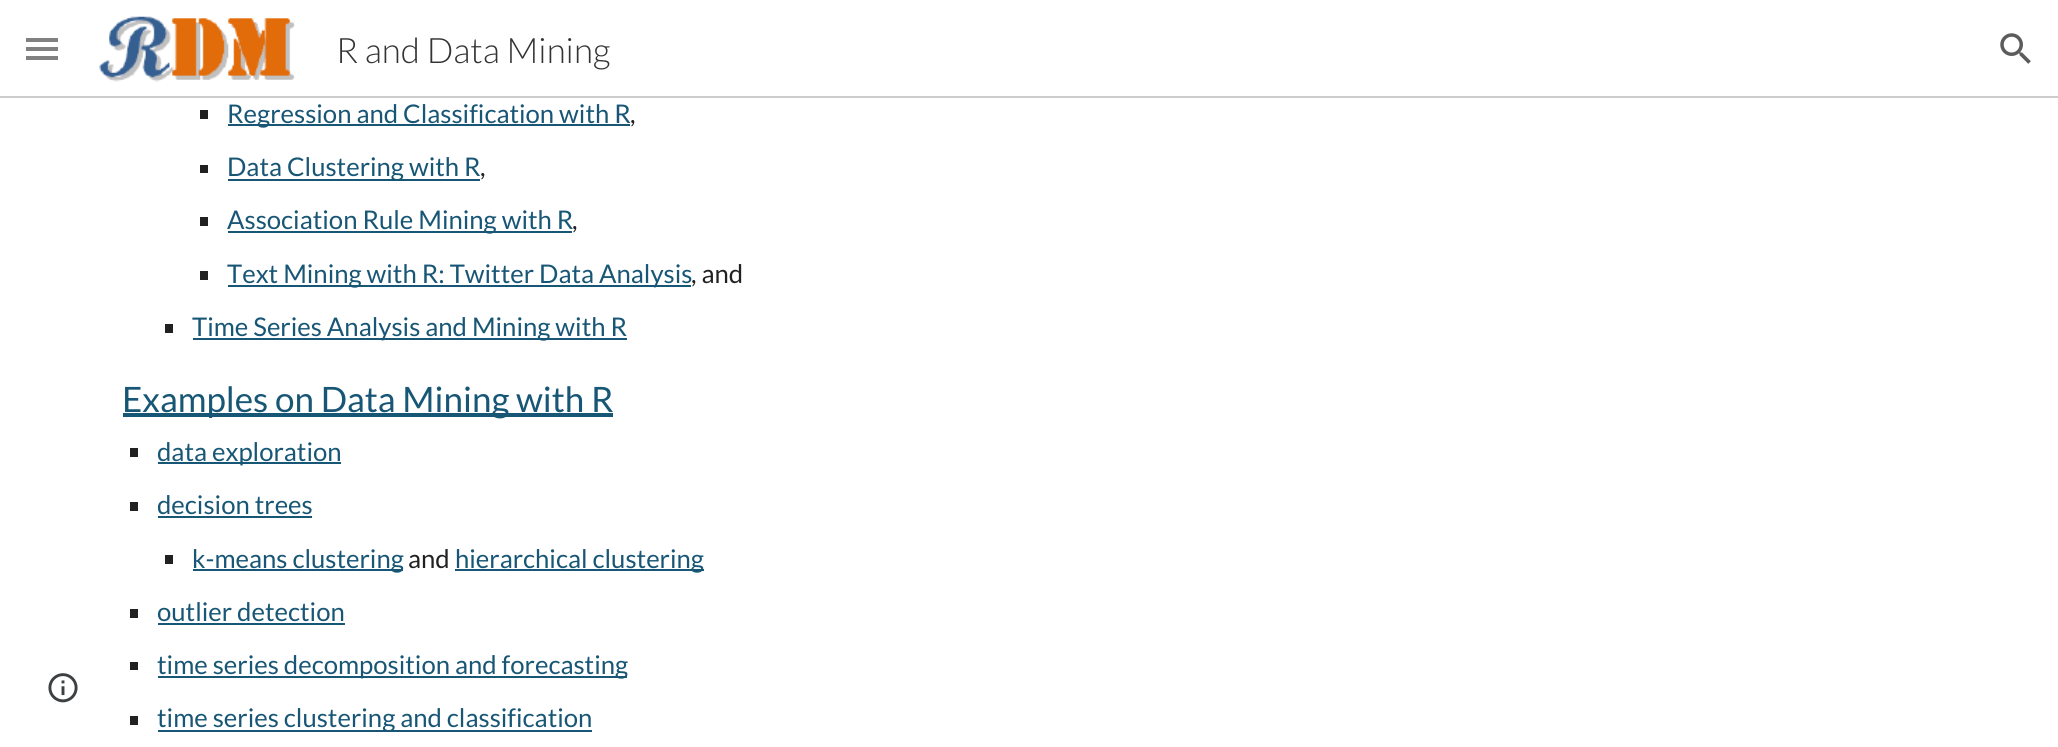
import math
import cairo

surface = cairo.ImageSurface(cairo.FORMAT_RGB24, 2058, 747)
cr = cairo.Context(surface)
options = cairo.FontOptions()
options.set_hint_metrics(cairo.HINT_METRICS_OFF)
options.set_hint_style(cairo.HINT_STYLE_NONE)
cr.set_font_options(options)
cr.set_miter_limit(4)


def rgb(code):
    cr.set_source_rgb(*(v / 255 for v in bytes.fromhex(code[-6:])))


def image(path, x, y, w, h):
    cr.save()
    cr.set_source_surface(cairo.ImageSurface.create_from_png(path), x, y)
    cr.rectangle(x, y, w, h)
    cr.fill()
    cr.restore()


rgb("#ffffff")
cr.paint()
for x, y, w, h, color in [
    (26, 38, 32, 4, "#818181"),
    (26, 47, 32, 4, "#818181"),
    (26, 56, 32, 4, "#818181"),
]:
    rgb(color)
    cr.rectangle(x, y, w, h)
    cr.fill()
image("img/1.png", 99, 16, 196, 66)
rgb("#cccccc")
cr.rectangle(0, 96, 2058, 2)
cr.fill()
image("img/2.png", 2000, 33, 31, 31)
image("img/3.png", 48, 673, 30, 30)
for x, y, w, h, color in [
    (200, 110, 8, 9, "#212121"),
    (228, 124, 402, 2, "#185676"),
    (200, 165, 8, 8, "#212121"),
    (228, 179, 252, 2, "#185676"),
    (200, 217, 8, 9, "#212121"),
    (228, 231, 344, 2, "#185676"),
    (200, 271, 8, 9, "#212121"),
    (228, 285, 463, 2, "#185676"),
    (165, 324, 8, 9, "#212121"),
    (193, 338, 434, 2, "#185676"),
    (123, 413, 490, 4, "#185676"),
    (130, 448, 8, 9, "#212121"),
    (158, 462, 183, 2, "#185676"),
    (130, 502, 8, 9, "#212121"),
    (158, 516, 154, 2, "#185676"),
    (165, 555, 8, 9, "#212121"),
    (193, 569, 210, 2, "#185676"),
    (455, 569, 249, 2, "#185676"),
    (130, 609, 8, 9, "#212121"),
    (158, 623, 187, 2, "#185676"),
    (130, 662, 8, 8, "#212121"),
    (158, 676, 469, 2, "#185676"),
    (130, 716, 8, 9, "#212121"),
    (158, 730, 434, 2, "#185676"),
]:
    rgb(color)
    cr.rectangle(x, y, w, h)
    cr.fill()
cr.select_font_face("Lato Light")
cr.set_font_size(35)
rgb("#333333")
cr.move_to(336, 63)
cr.show_text("R and Data Mining")
cr.select_font_face("Lato")
cr.set_font_size(25.7)
rgb("#185676")
cr.move_to(227, 123)
cr.show_text("Regression and Classification with R")
rgb("#212121")
cr.move_to(630, 123)
cr.show_text(",")
rgb("#185676")
cr.move_to(227, 176)
cr.show_text("Data Clustering with R")
rgb("#212121")
cr.move_to(480, 176)
cr.show_text(",")
rgb("#185676")
cr.move_to(227, 229)
cr.show_text("Association Rule Mining with R")
rgb("#212121")
cr.move_to(572, 229)
cr.show_text(",")
rgb("#185676")
cr.move_to(227, 283)
cr.show_text("Text Mining with R: Twitter Data Analysis")
rgb("#212121")
cr.move_to(691, 283)
cr.show_text(", and")
rgb("#185676")
cr.move_to(192, 336)
cr.show_text("Time Series Analysis and Mining with R")
cr.set_font_size(35)
cr.move_to(122, 412)
cr.show_text("Examples on Data Mining with R")
cr.set_font_size(25.7)
for x, y, s in [
    (157, 461, "data exploration"),
    (157, 514, "decision trees"),
    (192, 568, "k-means clustering"),
]:
    cr.move_to(x, y)
    cr.show_text(s)
rgb("#212121")
cr.move_to(408, 568)
cr.show_text("and")
rgb("#185676")
for x, y, s in [
    (455, 568, "hierarchical clustering"),
    (157, 621, "outlier detection"),
    (157, 674, "time series decomposition and forecasting"),
    (157, 727, "time series clustering and classification"),
]:
    cr.move_to(x, y)
    cr.show_text(s)
surface.write_to_png("page.png")
